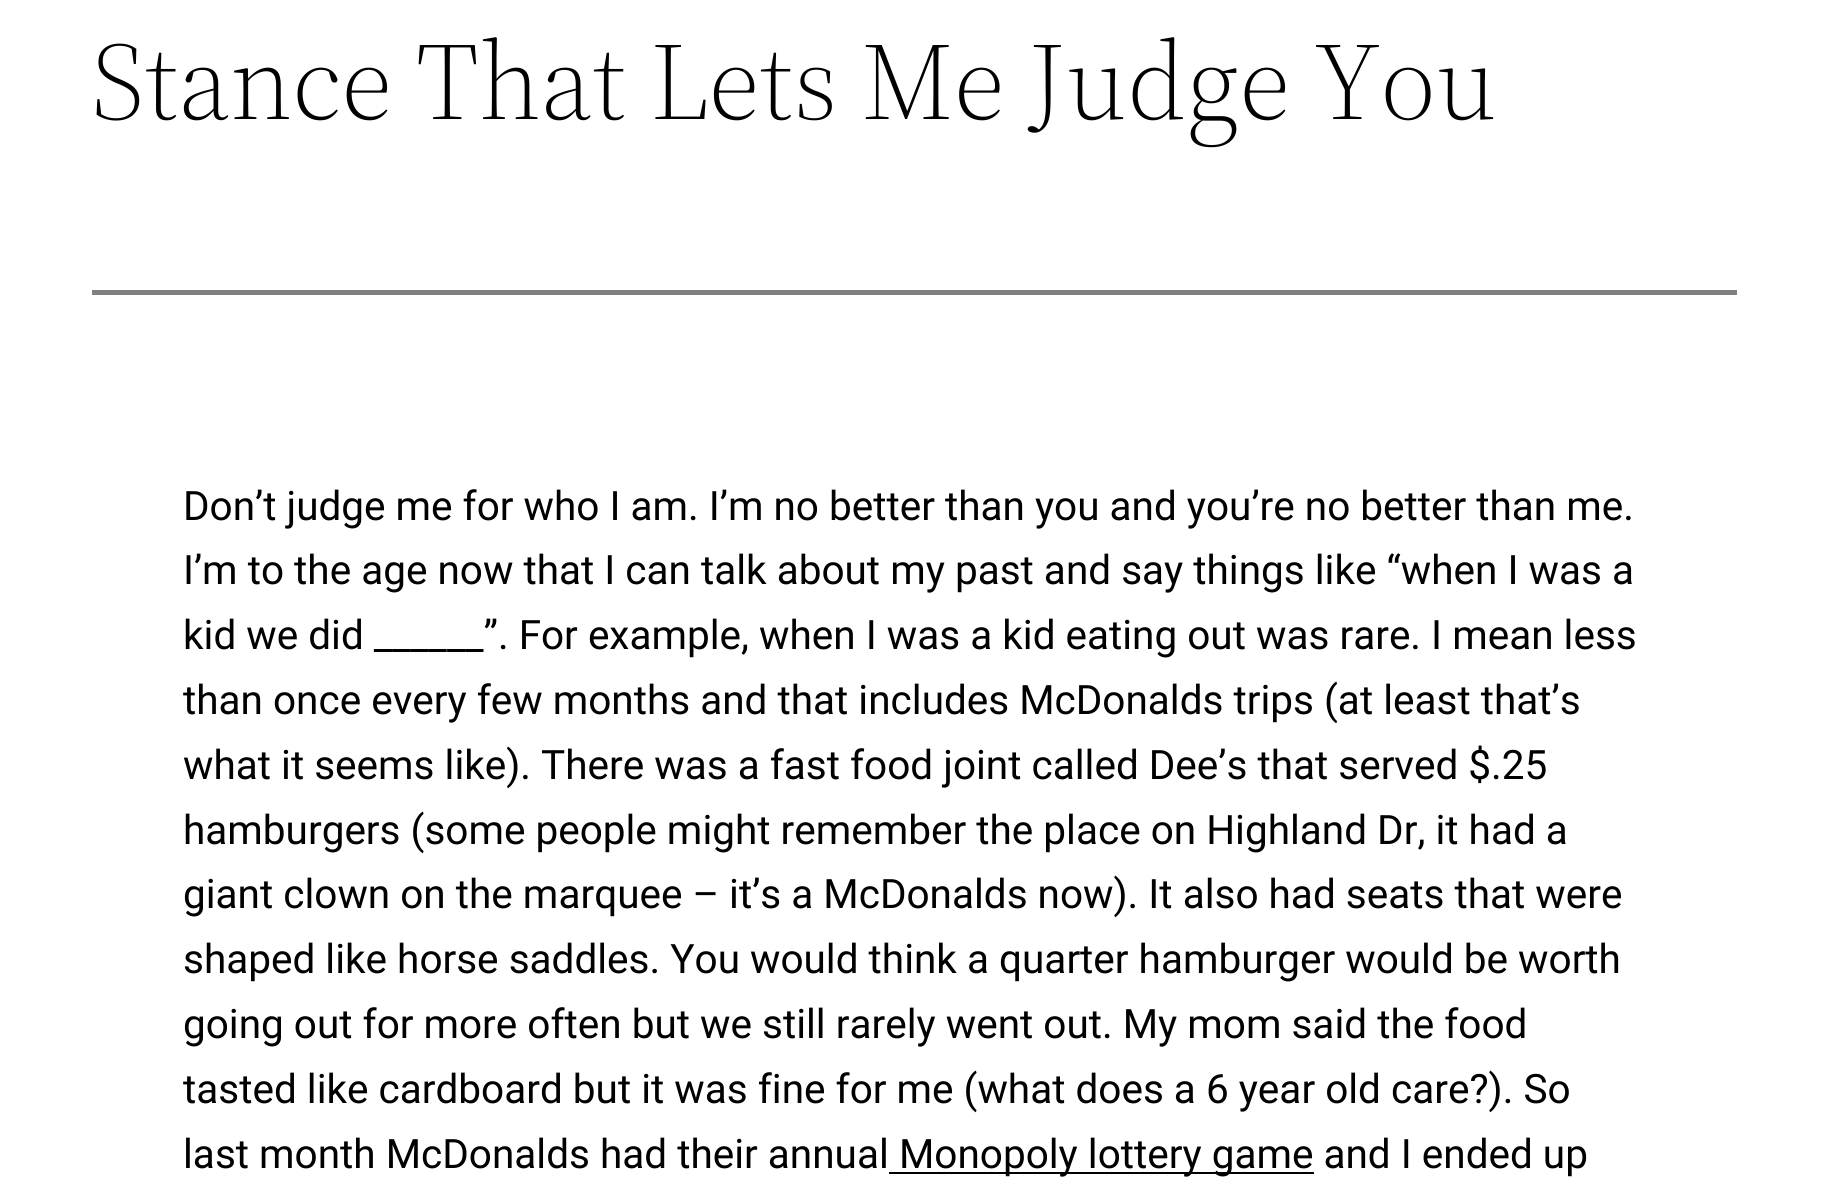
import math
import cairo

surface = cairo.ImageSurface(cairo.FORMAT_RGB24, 1828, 1177)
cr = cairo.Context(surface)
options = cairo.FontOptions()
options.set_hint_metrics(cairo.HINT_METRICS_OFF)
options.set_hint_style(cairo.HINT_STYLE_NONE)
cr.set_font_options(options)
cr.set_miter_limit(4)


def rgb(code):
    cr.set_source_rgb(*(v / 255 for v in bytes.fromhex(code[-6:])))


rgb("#ffffff")
cr.paint()
rgb("#808080")
cr.rectangle(92, 290, 1645, 5)
cr.fill()
rgb("#000000")
cr.rectangle(889, 1172, 425, 2)
cr.fill()
cr.select_font_face("Source Serif 4 Light")
cr.set_font_size(109.75)
cr.move_to(91, 119)
cr.show_text("Stance That Lets Me Judge You")
cr.select_font_face("Roboto")
cr.set_font_size(40.5)
for x, y, s in [
    (183, 520, "Don’t judge me for who I am. I’m no better than you and you’re no better than me."),
    (183, 584, "I’m to the age now that I can talk about my past and say things like “when I was a"),
    (183, 649, "kid we did ______”. For example, when I was a kid eating out was rare. I mean less"),
    (183, 714, "than once every few months and that includes McDonalds trips (at least that’s"),
    (183, 779, "what it seems like). There was a fast food joint called Dee’s that served $.25"),
    (183, 844, "hamburgers (some people might remember the place on Highland Dr, it had a"),
    (183, 908, "giant clown on the marquee – it’s a McDonalds now). It also had seats that were"),
    (183, 973, "shaped like horse saddles. You would think a quarter hamburger would be worth"),
    (183, 1038, "going out for more often but we still rarely went out. My mom said the food"),
    (183, 1103, "tasted like cardboard but it was fine for me (what does a 6 year old care?). So"),
    (183, 1168, "last month McDonalds had their annual"),
    (899, 1168, "Monopoly lottery game and I ended up"),
]:
    cr.move_to(x, y)
    cr.show_text(s)
surface.write_to_png("page.png")
